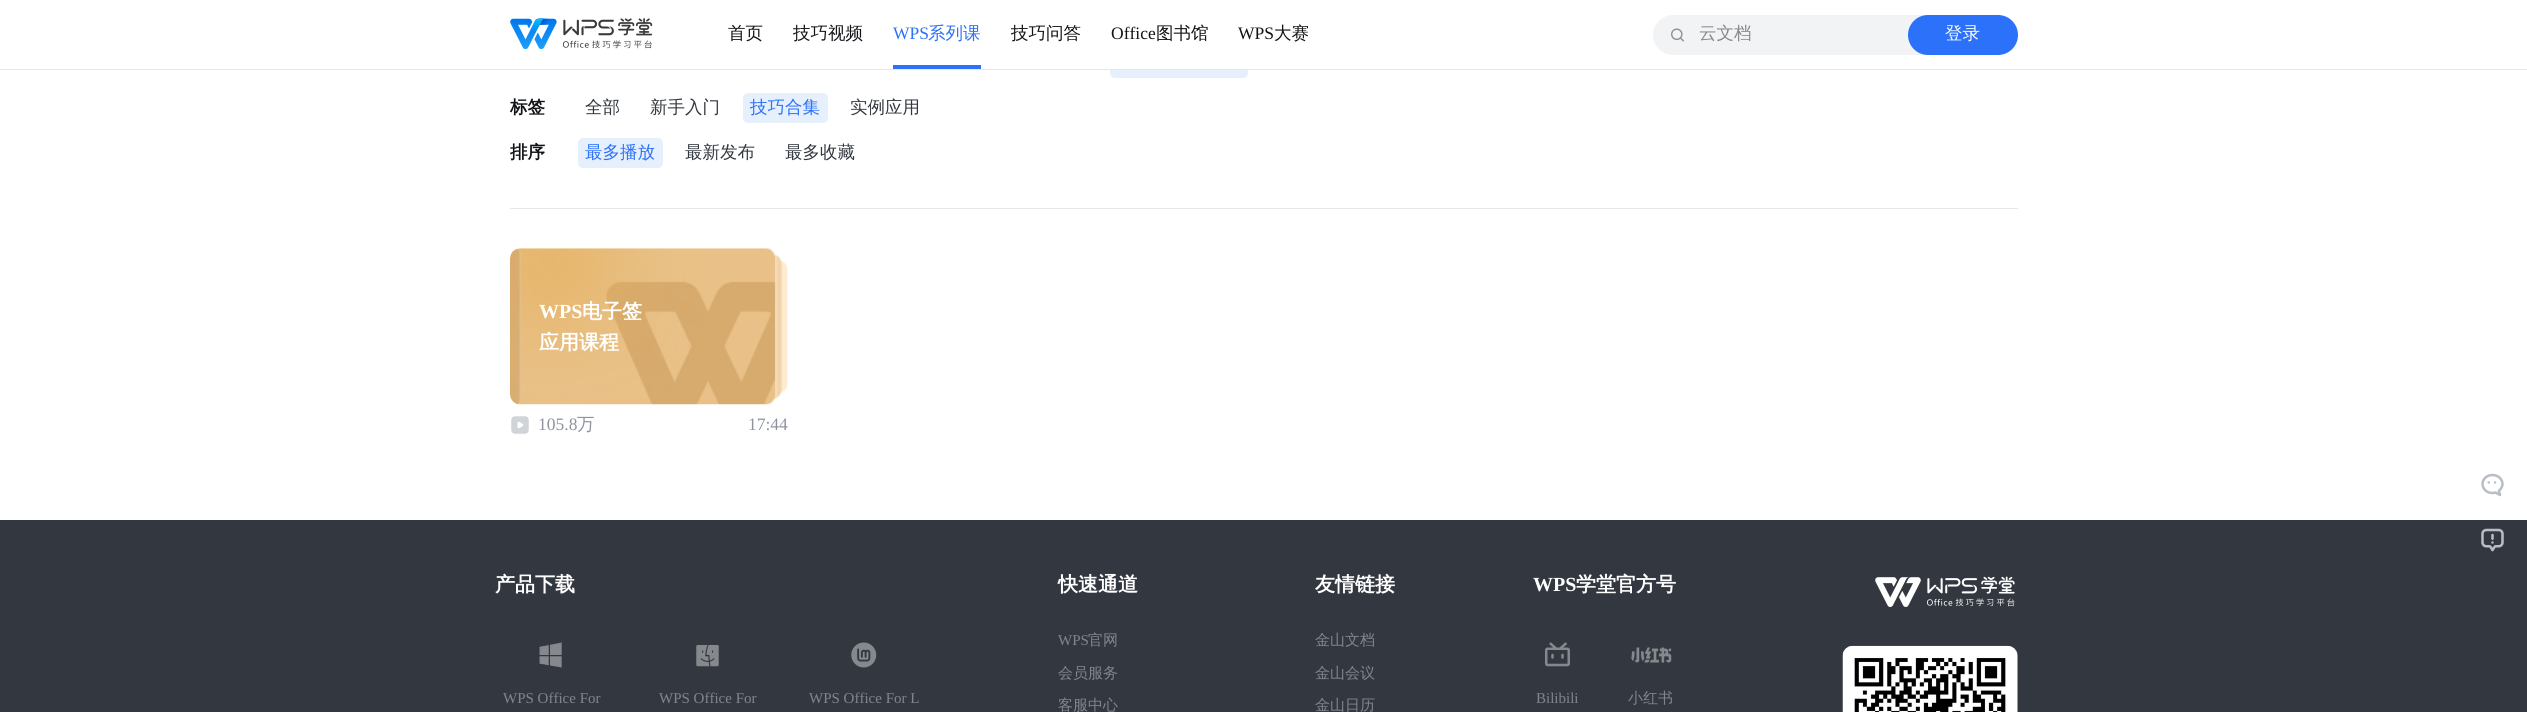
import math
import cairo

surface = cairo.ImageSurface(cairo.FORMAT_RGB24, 2527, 712)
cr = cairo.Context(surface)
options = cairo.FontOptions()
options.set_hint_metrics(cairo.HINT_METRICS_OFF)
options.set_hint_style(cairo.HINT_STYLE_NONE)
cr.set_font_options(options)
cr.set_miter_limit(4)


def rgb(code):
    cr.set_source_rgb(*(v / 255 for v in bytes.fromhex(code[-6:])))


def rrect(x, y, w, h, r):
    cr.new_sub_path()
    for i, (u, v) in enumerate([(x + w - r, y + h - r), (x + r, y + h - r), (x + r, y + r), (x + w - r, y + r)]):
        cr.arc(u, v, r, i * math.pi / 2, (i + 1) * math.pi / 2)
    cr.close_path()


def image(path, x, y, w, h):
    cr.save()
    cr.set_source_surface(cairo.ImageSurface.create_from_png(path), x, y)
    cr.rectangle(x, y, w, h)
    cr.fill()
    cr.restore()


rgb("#ffffff")
cr.paint()
rgb("#e6effc")
rrect(1110, 48, 138, 30, 5)
cr.fill()
rgb("#ffffff")
cr.rectangle(1110, 48, 138, 21)
cr.fill()
rgb("#e7e7e8")
cr.rectangle(0, 69, 2527, 1)
cr.fill()
image("img/1.png", 510, 18, 143, 32)
rgb("#2c71fa")
cr.rectangle(893, 65, 88, 4)
cr.fill()
rgb("#f2f3f5")
rrect(1653, 15, 315, 40, 20)
cr.fill()
image("img/2.png", 1671, 28, 13, 14)
rgb("#2c71fa")
rrect(1908, 15, 110, 40, 20)
cr.fill()
rgb("#e7e7e8")
cr.rectangle(510, 208, 1508, 1)
cr.fill()
rgb("#e6effc")
rrect(743, 93, 85, 30, 5)
cr.fill()
rrect(578, 138, 85, 30, 5)
cr.fill()
image("img/3.png", 510, 248, 278, 157)
image("img/4.png", 511, 416, 18, 18)
image("img/5.png", 2481, 473, 23, 24)
rgb("#333840")
cr.rectangle(0, 520, 2527, 192)
cr.fill()
image("img/6.png", 2481, 528, 23, 24)
image("img/7.png", 539, 642, 23, 26)
image("img/8.png", 696, 645, 23, 22)
image("img/9.png", 851, 642, 26, 26)
image("img/10.png", 1545, 642, 25, 25)
image("img/11.png", 1631, 647, 41, 16)
image("img/12.png", 1875, 576, 140, 31)
rgb("#6d7582")
rrect(1843, 646, 175, 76, 10)
cr.fill()
image("img/13.png", 1842, 645, 176, 67)
cr.select_font_face("WenQuanYi Zen Hei Medium")
cr.set_font_size(17.5)
rgb("#111317")
cr.move_to(728, 39)
cr.show_text("首页")
cr.move_to(793, 39)
cr.show_text("技巧视频")
cr.select_font_face("Liberation Serif")
rgb("#2c71fa")
cr.move_to(893, 39)
cr.show_text("WPS")
cr.select_font_face("WenQuanYi Zen Hei Medium")
cr.move_to(928, 39)
cr.show_text("系列课")
rgb("#111317")
cr.move_to(1011, 39)
cr.show_text("技巧问答")
cr.select_font_face("Liberation Serif")
cr.move_to(1111, 39)
cr.show_text("Office")
cr.select_font_face("WenQuanYi Zen Hei Medium")
cr.move_to(1156, 39)
cr.show_text("图书馆")
cr.select_font_face("Liberation Serif")
cr.move_to(1238, 39)
cr.show_text("WPS")
cr.select_font_face("WenQuanYi Zen Hei Medium")
cr.move_to(1274, 39)
cr.show_text("大赛")
rgb("#888888")
cr.move_to(1699, 39)
cr.show_text("云文档")
rgb("#ffffff")
cr.move_to(1945, 39)
cr.show_text("登录")
cr.select_font_face("WenQuanYi Zen Hei", cairo.FONT_SLANT_NORMAL, cairo.FONT_WEIGHT_BOLD)
rgb("#111317")
cr.move_to(510, 113)
cr.show_text("标签")
cr.select_font_face("WenQuanYi Zen Hei Medium")
rgb("#333840")
cr.move_to(585, 113)
cr.show_text("全部")
cr.move_to(650, 113)
cr.show_text("新手入门")
rgb("#2c71fa")
cr.move_to(750, 113)
cr.show_text("技巧合集")
rgb("#333840")
cr.move_to(850, 113)
cr.show_text("实例应用")
cr.select_font_face("WenQuanYi Zen Hei", cairo.FONT_SLANT_NORMAL, cairo.FONT_WEIGHT_BOLD)
rgb("#111317")
cr.move_to(510, 158)
cr.show_text("排序")
cr.select_font_face("WenQuanYi Zen Hei Medium")
rgb("#2c71fa")
cr.move_to(585, 158)
cr.show_text("最多播放")
rgb("#333840")
cr.move_to(685, 158)
cr.show_text("最新发布")
cr.move_to(785, 158)
cr.show_text("最多收藏")
cr.select_font_face("Liberation Serif", cairo.FONT_SLANT_NORMAL, cairo.FONT_WEIGHT_BOLD)
cr.set_font_size(20)
rgb("#ffffff")
cr.move_to(539, 318)
cr.show_text("WPS")
cr.select_font_face("WenQuanYi Zen Hei", cairo.FONT_SLANT_NORMAL, cairo.FONT_WEIGHT_BOLD)
cr.move_to(582, 318)
cr.show_text("电子签")
cr.move_to(539, 349)
cr.show_text("应用课程")
cr.select_font_face("Liberation Serif")
cr.set_font_size(17.5)
rgb("#8c939f")
cr.move_to(538, 430)
cr.show_text("105.8")
cr.select_font_face("WenQuanYi Zen Hei Medium")
cr.move_to(577, 430)
cr.show_text("万")
cr.select_font_face("Liberation Serif")
cr.move_to(748, 430)
cr.show_text("17:44")
cr.select_font_face("WenQuanYi Zen Hei", cairo.FONT_SLANT_NORMAL, cairo.FONT_WEIGHT_BOLD)
cr.set_font_size(20)
rgb("#ffffff")
cr.move_to(495, 591)
cr.show_text("产品下载")
cr.select_font_face("Liberation Serif")
cr.set_font_size(15)
rgb("#81858c")
for x, y, s in [
    (503, 703, "WPS Office For"),
    (659, 703, "WPS Office For"),
    (809, 703, "WPS Office For L"),
]:
    cr.move_to(x, y)
    cr.show_text(s)
cr.select_font_face("WenQuanYi Zen Hei", cairo.FONT_SLANT_NORMAL, cairo.FONT_WEIGHT_BOLD)
cr.set_font_size(20)
rgb("#ffffff")
cr.move_to(1058, 591)
cr.show_text("快速通道")
cr.select_font_face("Liberation Serif")
cr.set_font_size(15)
rgb("#81858c")
cr.move_to(1058, 645)
cr.show_text("WPS")
cr.select_font_face("WenQuanYi Zen Hei Medium")
for x, y, s in [
    (1088, 645, "官网"),
    (1058, 678, "会员服务"),
    (1058, 710, "客服中心"),
]:
    cr.move_to(x, y)
    cr.show_text(s)
cr.select_font_face("WenQuanYi Zen Hei", cairo.FONT_SLANT_NORMAL, cairo.FONT_WEIGHT_BOLD)
cr.set_font_size(20)
rgb("#ffffff")
cr.move_to(1315, 591)
cr.show_text("友情链接")
cr.select_font_face("WenQuanYi Zen Hei Medium")
cr.set_font_size(15)
rgb("#81858c")
for x, y, s in [
    (1315, 645, "金山文档"),
    (1315, 678, "金山会议"),
    (1315, 710, "金山日历"),
]:
    cr.move_to(x, y)
    cr.show_text(s)
cr.select_font_face("Liberation Serif", cairo.FONT_SLANT_NORMAL, cairo.FONT_WEIGHT_BOLD)
cr.set_font_size(20)
rgb("#ffffff")
cr.move_to(1533, 591)
cr.show_text("WPS")
cr.select_font_face("WenQuanYi Zen Hei", cairo.FONT_SLANT_NORMAL, cairo.FONT_WEIGHT_BOLD)
cr.move_to(1576, 591)
cr.show_text("学堂官方号")
cr.select_font_face("Liberation Serif")
cr.set_font_size(15)
rgb("#81858c")
cr.move_to(1536, 703)
cr.show_text("Bilibili")
cr.select_font_face("WenQuanYi Zen Hei Medium")
cr.move_to(1628, 703)
cr.show_text("小红书")
surface.write_to_png("page.png")
